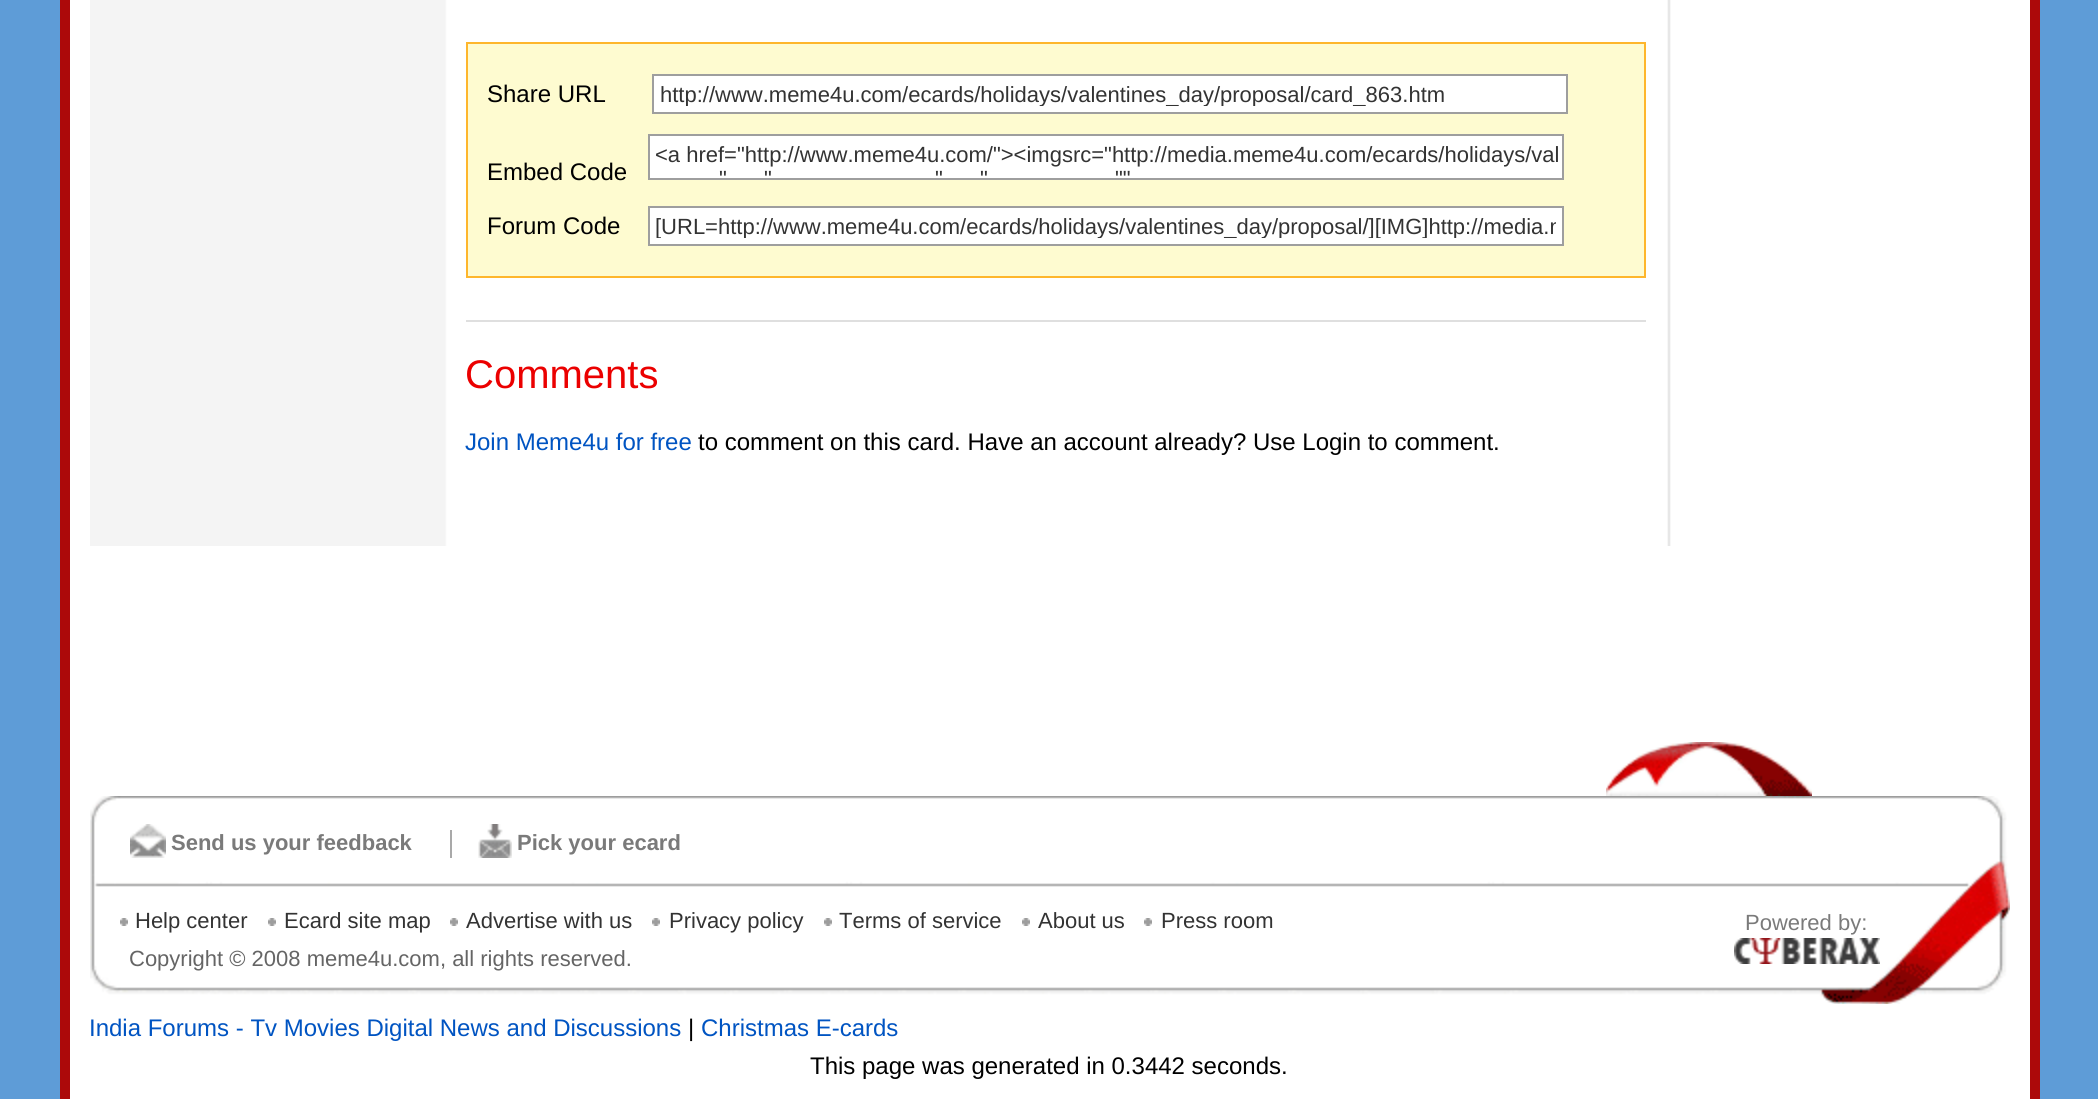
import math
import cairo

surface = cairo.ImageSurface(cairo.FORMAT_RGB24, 2098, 1099)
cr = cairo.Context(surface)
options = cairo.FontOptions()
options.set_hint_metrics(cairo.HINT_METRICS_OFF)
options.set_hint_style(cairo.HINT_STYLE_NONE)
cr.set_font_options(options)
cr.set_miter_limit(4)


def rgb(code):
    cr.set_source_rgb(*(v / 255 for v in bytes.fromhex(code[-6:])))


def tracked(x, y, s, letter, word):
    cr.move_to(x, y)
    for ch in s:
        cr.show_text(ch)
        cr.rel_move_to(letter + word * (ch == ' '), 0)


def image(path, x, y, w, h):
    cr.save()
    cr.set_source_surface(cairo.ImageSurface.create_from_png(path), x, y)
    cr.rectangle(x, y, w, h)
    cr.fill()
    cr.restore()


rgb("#5e9cd7")
cr.paint()
for x, y, w, h, color in [
    (70, 0, 1960, 1099, "#ffffff"),
    (2030, 0, 10, 1099, "#ac090a"),
    (60, 0, 10, 1099, "#ac090a"),
]:
    rgb(color)
    cr.rectangle(x, y, w, h)
    cr.fill()
image("img/1.png", 90, 0, 1581, 546)
rgb("#fefbd0")
cr.rectangle(467, 43, 1178, 234)
cr.fill_preserve()
rgb("#feb62c")
cr.stroke()
rgb("#ffffff")
cr.rectangle(653, 75, 914, 38)
cr.fill_preserve()
rgb("#9e9e9e")
cr.stroke()
rgb("#ffffff")
cr.rectangle(649, 135, 914, 44)
cr.fill_preserve()
rgb("#9e9e9e")
cr.stroke()
rgb("#ffffff")
cr.rectangle(649, 207, 914, 38)
cr.fill_preserve()
rgb("#9e9e9e")
cr.stroke()
rgb("#dfdfdf")
cr.rectangle(466, 320, 1180, 2)
cr.fill()
image("img/2.png", 90, 796, 1920, 208)
image("img/3.png", 1606, 742, 206, 54)
image("img/4.png", 130, 824, 36, 34)
rgb("#a9a9a9")
cr.rectangle(450, 830, 2, 28)
cr.fill()
image("img/5.png", 478, 824, 34, 34)
image("img/6.png", 120, 918, 8, 8)
image("img/6.png", 268, 918, 8, 8)
image("img/6.png", 450, 918, 8, 8)
image("img/6.png", 652, 918, 8, 8)
image("img/6.png", 824, 918, 8, 8)
image("img/6.png", 1022, 918, 8, 8)
image("img/6.png", 1144, 918, 8, 8)
image("img/7.png", 1734, 938, 146, 26)
cr.select_font_face("Liberation Sans")
cr.set_font_size(24)
rgb("#000000")
cr.move_to(487, 102)
cr.show_text("Share URL")
cr.save()
cr.rectangle(660, 82, 900, 24)
cr.clip()
cr.set_font_size(22)
rgb("#333333")
cr.move_to(660, 102)
cr.show_text("http://www.meme4u.com/ecards/holidays/valentines_day/proposal/card_863.htm")
cr.restore()
cr.move_to(487, 180)
cr.show_text("Embed Code")
cr.set_font_size(22)
rgb("#333333")
cr.move_to(655, 162)
cr.show_text("<a href=\"http://www.meme4u.com/\"><imgsrc=\"http://media.meme4u.com/ecards/holidays/val")
for x, y, s in [
    (719, 186, "\""),
    (764, 186, "\""),
    (935, 186, "\""),
    (980, 186, "\""),
    (1115, 186, "\"\""),
]:
    tracked(x, y, s, 0, 85)
cr.set_font_size(24)
rgb("#000000")
cr.move_to(487, 234)
cr.show_text("Forum Code")
cr.save()
cr.rectangle(656, 214, 900, 24)
cr.clip()
cr.set_font_size(22)
rgb("#333333")
cr.move_to(655, 234)
cr.show_text("[URL=http://www.meme4u.com/ecards/holidays/valentines_day/proposal/][IMG]http://media.m")
cr.restore()
cr.set_font_size(40)
rgb("#eb0000")
cr.move_to(465, 388)
cr.show_text("Comments")
cr.set_font_size(24)
rgb("#0054c2")
cr.move_to(465, 450)
cr.show_text("Join Meme4u for free")
rgb("#000000")
cr.move_to(698, 450)
cr.show_text("to comment on this card. Have an account already? Use Login to comment.")
cr.select_font_face("Liberation Sans", cairo.FONT_SLANT_NORMAL, cairo.FONT_WEIGHT_BOLD)
cr.set_font_size(22)
rgb("#7a7a7a")
cr.move_to(171, 850)
cr.show_text("Send us your feedback")
cr.move_to(517, 850)
cr.show_text("Pick your ecard")
cr.select_font_face("Liberation Sans")
rgb("#333333")
for x, y, s in [
    (135, 928, "Help center"),
    (284, 928, "Ecard site map"),
    (466, 928, "Advertise with us"),
    (669, 928, "Privacy policy"),
    (839, 928, "Terms of service"),
    (1038, 928, "About us"),
    (1161, 928, "Press room"),
]:
    cr.move_to(x, y)
    cr.show_text(s)
rgb("#7a7a7a")
cr.move_to(1745, 930)
cr.show_text("Powered by:")
rgb("#656565")
cr.move_to(129, 966)
cr.show_text("Copyright © 2008 meme4u.com, all rights reserved.")
cr.set_font_size(24)
rgb("#0054c2")
cr.move_to(89, 1036)
cr.show_text("India Forums - Tv Movies Digital News and Discussions")
rgb("#000000")
cr.move_to(688, 1036)
cr.show_text("|")
rgb("#0054c2")
cr.move_to(701, 1036)
cr.show_text("Christmas E-cards")
rgb("#000000")
cr.move_to(810, 1074)
cr.show_text("This page was generated in 0.3442 seconds.")
surface.write_to_png("page.png")
